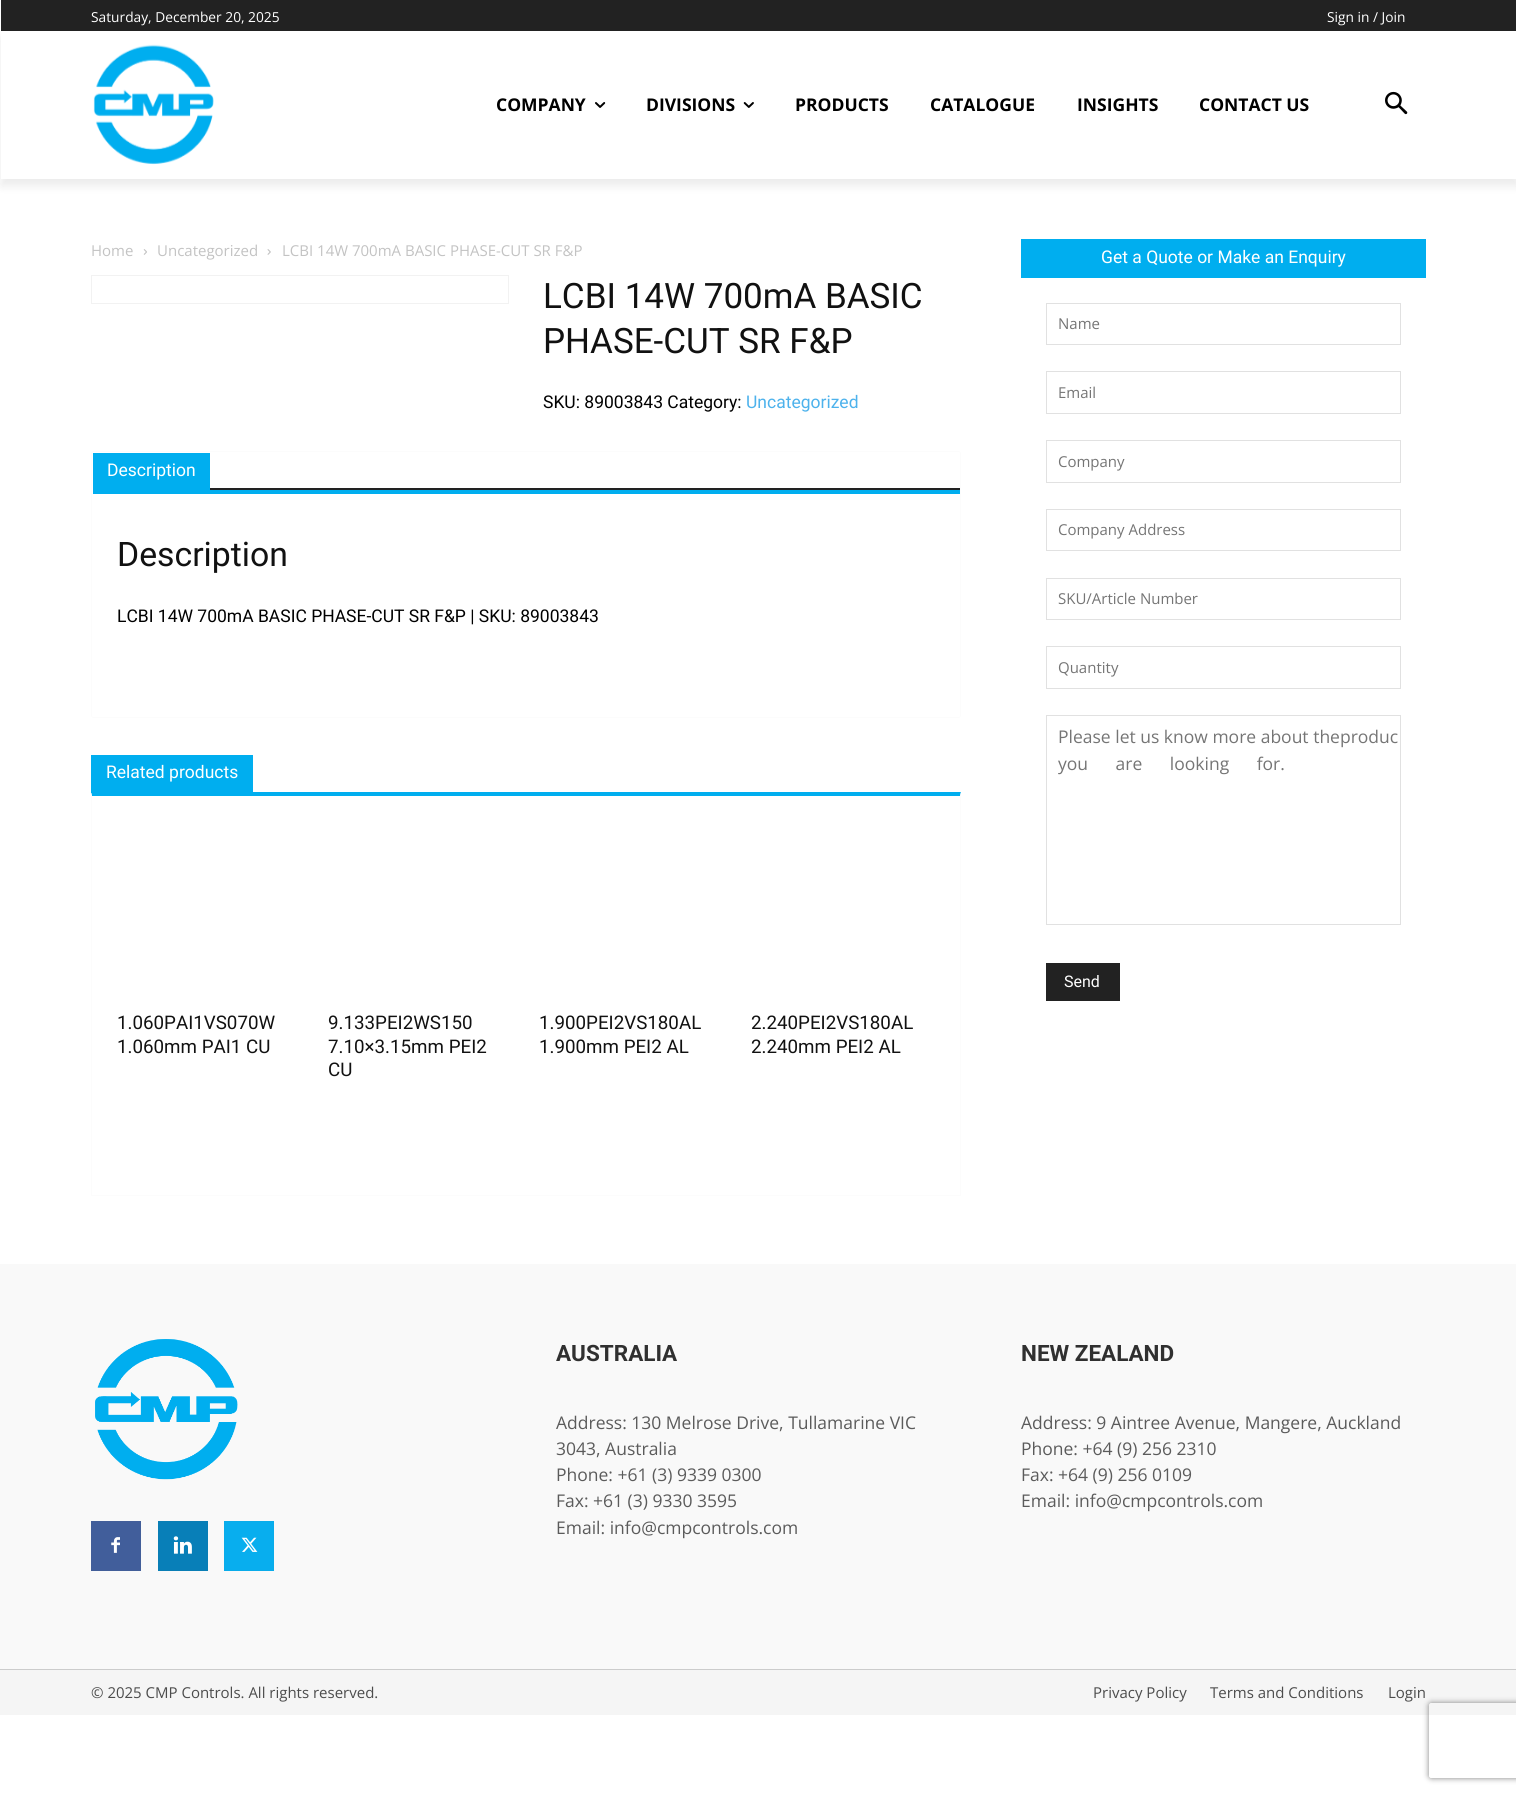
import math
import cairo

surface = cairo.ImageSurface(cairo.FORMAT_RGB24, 1516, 1795)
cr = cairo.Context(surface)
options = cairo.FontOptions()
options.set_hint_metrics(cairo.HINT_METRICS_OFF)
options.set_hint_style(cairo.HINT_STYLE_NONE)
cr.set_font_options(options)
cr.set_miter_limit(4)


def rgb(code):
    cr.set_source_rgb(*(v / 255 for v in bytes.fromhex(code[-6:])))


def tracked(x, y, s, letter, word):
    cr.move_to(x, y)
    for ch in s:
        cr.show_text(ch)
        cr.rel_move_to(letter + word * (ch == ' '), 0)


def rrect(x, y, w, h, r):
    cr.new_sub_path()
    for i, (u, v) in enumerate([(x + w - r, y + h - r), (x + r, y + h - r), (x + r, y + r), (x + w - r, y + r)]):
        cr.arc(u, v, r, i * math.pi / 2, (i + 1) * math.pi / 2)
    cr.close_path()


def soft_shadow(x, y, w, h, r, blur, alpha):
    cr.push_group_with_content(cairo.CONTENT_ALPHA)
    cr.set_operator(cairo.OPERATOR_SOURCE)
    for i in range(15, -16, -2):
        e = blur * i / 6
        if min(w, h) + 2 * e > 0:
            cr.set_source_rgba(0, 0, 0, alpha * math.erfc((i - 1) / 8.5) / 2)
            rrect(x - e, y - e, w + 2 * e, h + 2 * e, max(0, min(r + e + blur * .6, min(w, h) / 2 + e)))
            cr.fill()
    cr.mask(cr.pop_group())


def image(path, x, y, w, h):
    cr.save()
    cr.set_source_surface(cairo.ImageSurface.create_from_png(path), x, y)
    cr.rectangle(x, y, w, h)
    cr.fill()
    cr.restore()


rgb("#ffffff")
cr.paint()
rgb("#222222")
cr.rectangle(1, 0, 1515, 31)
cr.fill()
image("img/1.png", 93, 44, 121, 121)
cr.save()
cr.set_fill_rule(cairo.FILL_RULE_EVEN_ODD)
cr.new_path()
cr.move_to(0, 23)
cr.line_to(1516, 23)
cr.line_to(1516, 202)
cr.line_to(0, 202)
cr.close_path()
cr.move_to(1, 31)
cr.line_to(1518, 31)
cr.line_to(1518, 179)
cr.line_to(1, 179)
cr.close_path()
cr.clip()
rgb("#000000")
soft_shadow(1, 39, 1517, 147, 0, 5, 0.08)
cr.restore()
image("img/2.png", 595, 102, 11, 6)
image("img/3.png", 743, 102, 11, 6)
image("img/4.png", 1385, 91, 23, 24)
image("img/5.png", 143, 249, 4, 6)
image("img/6.png", 267, 249, 4, 6)
cr.rectangle(91.5, 275.5, 417, 28)
rgb("#f2f2f2")
cr.set_line_width(1)
cr.stroke()
rrect(91.5, 451.5, 869, 266, 2)
rgb("#fcfcfc")
cr.stroke()
for x, y, w, h, color in [
    (93, 490, 867, 4, "#00aeef"),
    (93, 453, 117, 37, "#00aeef"),
    (210, 488, 750, 2, "#222222"),
]:
    rgb(color)
    cr.rectangle(x, y, w, h)
    cr.fill()
rgb("#00aeef")
cr.new_path()
cr.move_to(91, 792)
cr.line_to(961, 792)
cr.line_to(960, 796)
cr.line_to(92, 796)
cr.close_path()
cr.fill()
rgb("#fcfcfc")
cr.new_path()
cr.move_to(961, 792)
cr.line_to(961, 1196)
cr.line_to(960, 1195)
cr.line_to(960, 796)
cr.close_path()
cr.fill()
cr.rectangle(91, 1195, 870, 1)
cr.fill()
cr.new_path()
cr.move_to(91, 1196)
cr.line_to(91, 792)
cr.line_to(92, 796)
cr.line_to(92, 1195)
cr.close_path()
cr.fill()
rgb("#00aeef")
cr.rectangle(91, 755, 162, 38)
cr.fill()
cr.rectangle(1021, 239, 405, 39)
cr.fill()
cr.rectangle(1046.5, 303.5, 354, 41)
rgb("#e1e1e1")
cr.stroke()
cr.rectangle(1046.5, 371.5, 354, 42)
cr.stroke()
cr.rectangle(1046.5, 440.5, 354, 42)
cr.stroke()
cr.rectangle(1046.5, 509.5, 354, 41)
cr.stroke()
cr.rectangle(1046.5, 578.5, 354, 41)
cr.stroke()
cr.rectangle(1046.5, 646.5, 354, 42)
cr.stroke()
cr.rectangle(1046.5, 715.5, 354, 209)
cr.stroke()
rgb("#222222")
cr.rectangle(1046, 963, 74, 38)
cr.fill()
rgb("#f9f9f9")
cr.rectangle(0, 1264, 1516, 405)
cr.fill()
image("img/7.png", 95, 1339, 143, 141)
rgb("#415e9b")
cr.rectangle(92, 1522, 48, 48)
cr.fill()
image("img/8.png", 111, 1537, 9, 16)
cr.rectangle(91.5, 1521.5, 49, 49)
rgb("#425e99")
cr.stroke()
rgb("#087fb8")
cr.rectangle(159, 1522, 48, 48)
cr.fill()
image("img/9.png", 173, 1536, 19, 18)
cr.rectangle(158.5, 1521.5, 49, 49)
rgb("#0a7eb5")
cr.stroke()
rgb("#08aeee")
cr.rectangle(225, 1522, 48, 48)
cr.fill()
image("img/10.png", 241, 1537, 17, 15)
cr.rectangle(224.5, 1521.5, 49, 49)
rgb("#0aacea")
cr.stroke()
rgb("#f5f5f5")
cr.rectangle(0, 1670, 1516, 45)
cr.fill()
rgb("#cccccc")
cr.rectangle(0, 1669, 1516, 1)
cr.fill()
cr.save()
cr.set_fill_rule(cairo.FILL_RULE_EVEN_ODD)
cr.new_path()
cr.move_to(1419, 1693)
cr.line_to(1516, 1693)
cr.line_to(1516, 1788)
cr.line_to(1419, 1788)
cr.close_path()
cr.move_to(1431.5, 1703)
cr.line_to(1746.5, 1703)
cr.curve_to(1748, 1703, 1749, 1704, 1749, 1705.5)
cr.line_to(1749, 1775.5)
cr.curve_to(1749, 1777, 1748, 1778, 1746.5, 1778)
cr.line_to(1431.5, 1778)
cr.curve_to(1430, 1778, 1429, 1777, 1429, 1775.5)
cr.line_to(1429, 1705.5)
cr.curve_to(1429, 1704, 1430, 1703, 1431.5, 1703)
cr.close_path()
cr.clip()
rgb("#808080")
soft_shadow(1429, 1703, 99, 75, 2.5, 3, 1)
cr.restore()
cr.select_font_face("Open Sans")
cr.set_font_size(13.75)
rgb("#ffffff")
cr.move_to(91, 22)
cr.show_text("Saturday, December 20, 2025")
cr.move_to(1327, 22)
cr.show_text("Sign in / Join")
cr.select_font_face("Open Sans", cairo.FONT_SLANT_NORMAL, cairo.FONT_WEIGHT_BOLD)
cr.set_font_size(17.5)
rgb("#000000")
for x, y, s in [
    (496, 111, "COMPANY"),
    (646, 111, "DIVISIONS"),
    (795, 111, "PRODUCTS"),
    (930, 111, "CATALOGUE"),
    (1077, 111, "INSIGHTS"),
    (1199, 111, "CONTACT US"),
]:
    cr.move_to(x, y)
    cr.show_text(s)
cr.select_font_face("Open Sans")
cr.set_font_size(15)
rgb("#c3c3c3")
for x, y, s in [
    (91, 256, "Home"),
    (157, 256, "Uncategorized"),
    (282, 256, "LCBI 14W 700mA BASIC PHASE-CUT SR F&P"),
]:
    cr.move_to(x, y)
    cr.show_text(s)
cr.select_font_face("Roboto")
cr.set_font_size(35)
rgb("#111111")
cr.move_to(543, 308)
cr.show_text("LCBI 14W 700mA BASIC")
cr.move_to(543, 353)
cr.show_text("PHASE-CUT SR F&P")
cr.set_font_size(17.5)
rgb("#000000")
cr.move_to(543, 408)
cr.show_text("SKU: 89003843 Category:")
rgb("#4db2ec")
cr.move_to(746, 408)
cr.show_text("Uncategorized")
rgb("#ffffff")
cr.move_to(107, 476)
cr.show_text("Description")
cr.set_font_size(33.75)
rgb("#111111")
cr.move_to(117, 566)
cr.show_text("Description")
cr.set_font_size(17.5)
rgb("#000000")
cr.move_to(117, 622)
cr.show_text("LCBI 14W 700mA BASIC PHASE-CUT SR F&P | SKU: 89003843")
rgb("#ffffff")
cr.move_to(106, 778)
cr.show_text("Related products")
cr.set_font_size(18.75)
rgb("#111111")
for x, y, s in [
    (117, 1029, "1.060PAI1VS070W"),
    (117, 1053, "1.060mm PAI1 CU"),
    (328, 1029, "9.133PEI2WS150"),
    (328, 1053, "7.10×3.15mm PEI2"),
    (328, 1076, "CU"),
    (539, 1029, "1.900PEI2VS180AL"),
    (539, 1053, "1.900mm PEI2 AL"),
    (751, 1029, "2.240PEI2VS180AL"),
    (751, 1053, "2.240mm PEI2 AL"),
]:
    cr.move_to(x, y)
    cr.show_text(s)
cr.set_font_size(17.5)
rgb("#ffffff")
cr.move_to(1101, 263)
cr.show_text("Get a Quote or Make an Enquiry")
cr.select_font_face("Open Sans")
cr.set_font_size(15)
rgb("#757575")
for x, y, s in [
    (1058, 329, "Name"),
    (1058, 398, "Email"),
    (1058, 467, "Company"),
    (1058, 535, "Company Address"),
    (1058, 604, "SKU/Article Number"),
    (1058, 673, "Quantity"),
]:
    cr.move_to(x, y)
    cr.show_text(s)
cr.set_font_size(17.5)
cr.move_to(1058, 743)
cr.show_text("Please let us know more about theproduc")
tracked(1058, 770, "you are looking for.", 0, 23)
cr.select_font_face("Roboto")
cr.set_font_size(16)
rgb("#ffffff")
cr.move_to(1064, 987)
cr.show_text("Send")
cr.select_font_face("Roboto", cairo.FONT_SLANT_NORMAL, cairo.FONT_WEIGHT_BOLD)
cr.set_font_size(22.5)
rgb("#303030")
cr.move_to(556, 1361)
cr.show_text("AUSTRALIA")
cr.select_font_face("Open Sans")
cr.set_font_size(17.5)
rgb("#5b5b5b")
for x, y, s in [
    (556, 1429, "Address: 130 Melrose Drive, Tullamarine VIC"),
    (556, 1455, "3043, Australia"),
    (556, 1481, "Phone: +61 (3) 9339 0300"),
    (556, 1507, "Fax: +61 (3) 9330 3595"),
    (556, 1534, "Email: info@cmpcontrols.com"),
]:
    cr.move_to(x, y)
    cr.show_text(s)
cr.select_font_face("Roboto", cairo.FONT_SLANT_NORMAL, cairo.FONT_WEIGHT_BOLD)
cr.set_font_size(22.5)
rgb("#303030")
cr.move_to(1021, 1361)
cr.show_text("NEW ZEALAND")
cr.select_font_face("Open Sans")
cr.set_font_size(17.5)
rgb("#5b5b5b")
for x, y, s in [
    (1021, 1429, "Address: 9 Aintree Avenue, Mangere, Auckland"),
    (1021, 1455, "Phone: +64 (9) 256 2310"),
    (1021, 1481, "Fax: +64 (9) 256 0109"),
    (1021, 1507, "Email: info@cmpcontrols.com"),
]:
    cr.move_to(x, y)
    cr.show_text(s)
cr.set_font_size(15)
rgb("#4c4c4c")
for x, y, s in [
    (91, 1698, "© 2025 CMP Controls. All rights reserved."),
    (1093, 1698, "Privacy Policy"),
    (1210, 1698, "Terms and Conditions"),
    (1388, 1698, "Login"),
]:
    cr.move_to(x, y)
    cr.show_text(s)
surface.write_to_png("page.png")
